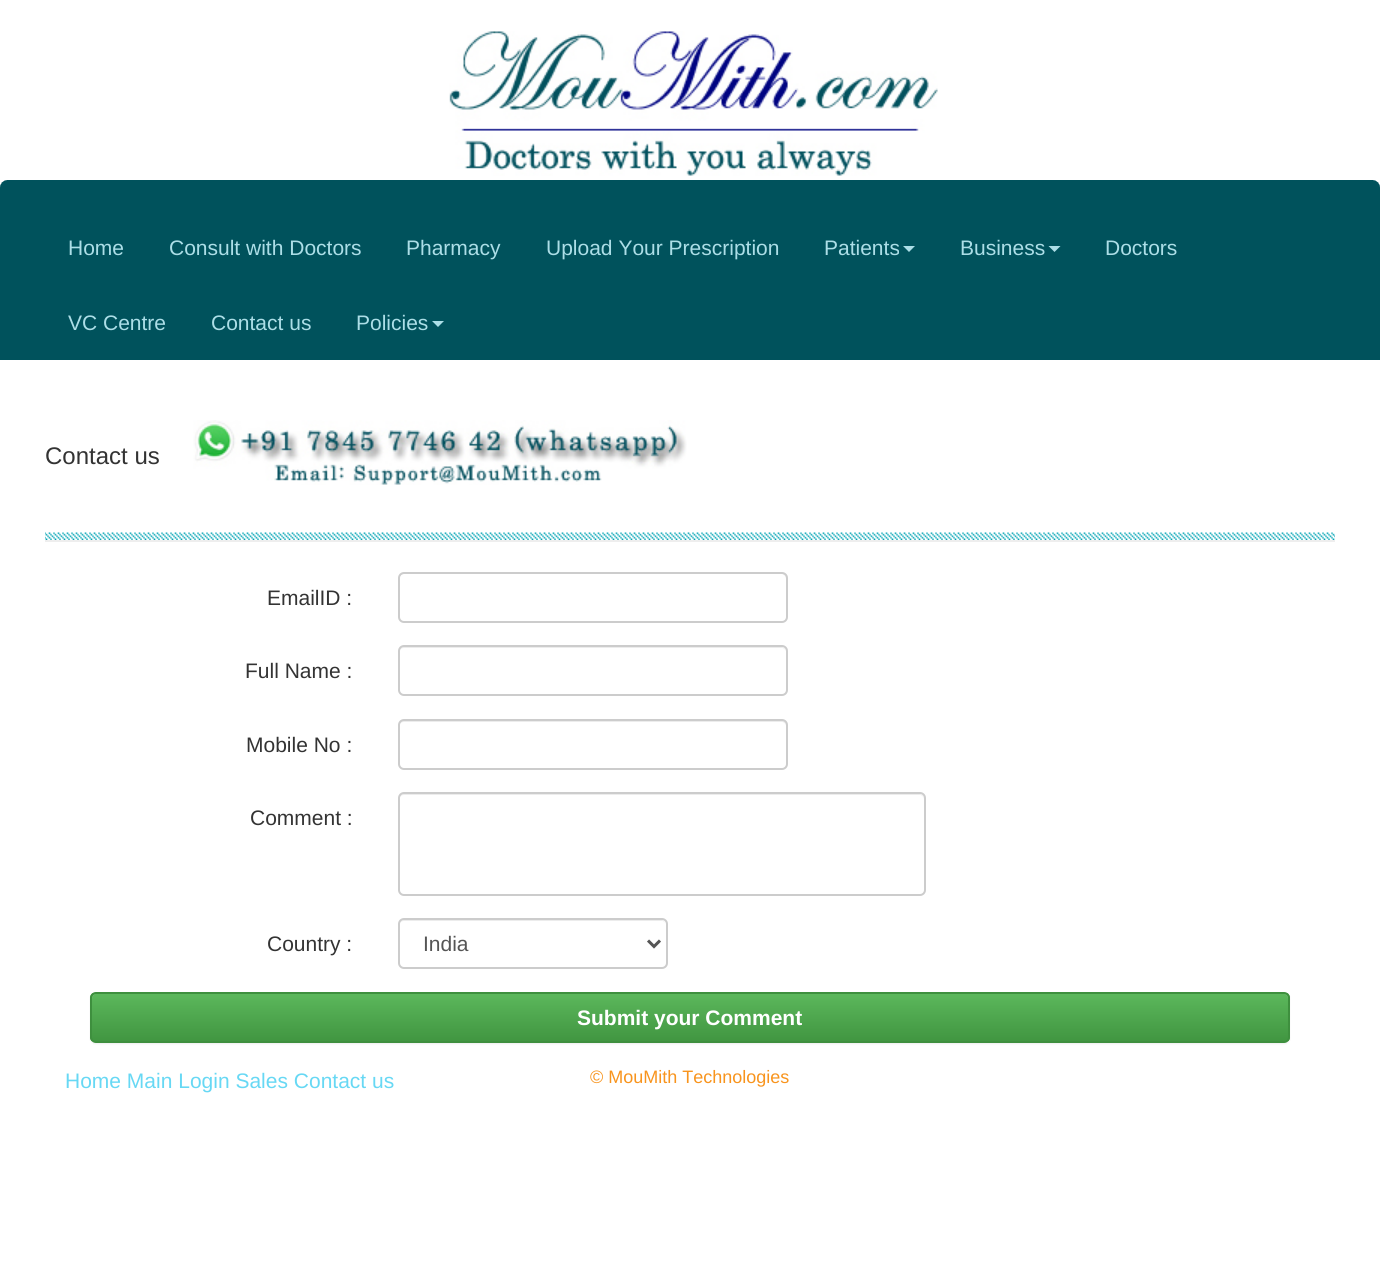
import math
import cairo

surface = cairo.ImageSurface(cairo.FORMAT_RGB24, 1380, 1276)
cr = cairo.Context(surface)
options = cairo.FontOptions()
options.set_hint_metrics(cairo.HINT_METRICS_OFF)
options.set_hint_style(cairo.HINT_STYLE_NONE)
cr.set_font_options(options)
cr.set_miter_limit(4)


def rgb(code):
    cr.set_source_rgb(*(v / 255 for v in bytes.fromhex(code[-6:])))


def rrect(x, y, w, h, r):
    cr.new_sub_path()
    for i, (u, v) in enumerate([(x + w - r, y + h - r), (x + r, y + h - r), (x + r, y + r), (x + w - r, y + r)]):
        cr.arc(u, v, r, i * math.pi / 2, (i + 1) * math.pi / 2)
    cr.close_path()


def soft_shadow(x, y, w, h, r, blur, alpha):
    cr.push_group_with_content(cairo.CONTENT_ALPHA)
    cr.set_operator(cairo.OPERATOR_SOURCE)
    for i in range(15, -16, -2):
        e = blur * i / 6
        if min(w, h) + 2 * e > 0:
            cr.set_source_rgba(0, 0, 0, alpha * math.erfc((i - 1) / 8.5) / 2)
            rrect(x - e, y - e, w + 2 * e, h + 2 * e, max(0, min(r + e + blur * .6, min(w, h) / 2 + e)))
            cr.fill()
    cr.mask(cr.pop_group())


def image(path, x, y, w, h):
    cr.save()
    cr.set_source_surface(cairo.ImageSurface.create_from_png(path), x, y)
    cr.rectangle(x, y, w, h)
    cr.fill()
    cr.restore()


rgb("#ffffff")
cr.paint()
image("img/1.png", 449, 31, 489, 145)
image("img/2.png", 0, 180, 1380, 180)
rgb("#acdee7")
cr.new_path()
cr.move_to(903, 246)
cr.line_to(915, 246)
cr.line_to(909, 252)
cr.close_path()
cr.fill()
cr.new_path()
cr.move_to(1048.5, 246)
cr.line_to(1060.5, 246)
cr.line_to(1054.5, 252)
cr.close_path()
cr.fill()
cr.new_path()
cr.move_to(432, 321)
cr.line_to(444, 321)
cr.line_to(438, 327)
cr.close_path()
cr.fill()
image("img/3.png", 45, 532, 1290, 8)
rgb("#eeeeee")
cr.rectangle(45, 540, 1290, 2)
cr.fill()
image("img/4.png", 193, 420, 494, 65)
rgb("#ececec")
cr.new_path()
cr.move_to(404, 574)
cr.line_to(782, 574)
cr.curve_to(784, 574, 786, 577, 786, 579)
cr.line_to(786, 578)
cr.curve_to(786, 575, 784, 573, 781, 573)
cr.line_to(404, 573)
cr.curve_to(401, 573, 399, 575, 399, 578)
cr.line_to(399, 579)
cr.curve_to(399, 577, 401, 574, 404, 574)
cr.close_path()
cr.fill()
rrect(399, 573, 388, 49, 5)
rgb("#cccccc")
cr.stroke()
rgb("#ececec")
cr.new_path()
cr.move_to(404, 648)
cr.line_to(782, 648)
cr.curve_to(784, 648, 786, 650, 786, 652)
cr.curve_to(786, 649, 784, 647, 781, 647)
cr.line_to(404, 647)
cr.curve_to(401, 647, 399, 649, 399, 652)
cr.curve_to(399, 650, 401, 648, 404, 648)
cr.close_path()
cr.fill()
rrect(399, 646, 388, 49, 5)
rgb("#cccccc")
cr.stroke()
rgb("#ececec")
cr.new_path()
cr.move_to(404, 722)
cr.line_to(782, 722)
cr.curve_to(784, 722, 786, 724, 786, 726)
cr.line_to(786, 725)
cr.curve_to(786, 722, 784, 720, 781, 720)
cr.line_to(404, 720)
cr.curve_to(401, 720, 399, 722, 399, 725)
cr.line_to(399, 726)
cr.curve_to(399, 724, 401, 722, 404, 722)
cr.close_path()
cr.fill()
rrect(399, 720, 388, 49, 5)
rgb("#cccccc")
cr.stroke()
rgb("#ececec")
cr.new_path()
cr.move_to(404, 795)
cr.line_to(920, 795)
cr.curve_to(922, 795, 924, 797, 924, 800)
cr.line_to(924, 799)
cr.curve_to(924, 796, 922, 794, 919, 794)
cr.line_to(404, 794)
cr.curve_to(401, 794, 399, 796, 399, 799)
cr.line_to(399, 800)
cr.curve_to(399, 797, 401, 795, 404, 795)
cr.close_path()
cr.fill()
rrect(399, 793, 526, 102, 5)
rgb("#cccccc")
cr.stroke()
rgb("#ececec")
cr.new_path()
cr.move_to(404, 921)
cr.line_to(662, 921)
cr.curve_to(664, 921, 666, 923, 666, 926)
cr.curve_to(666, 923, 664, 920, 661, 920)
cr.line_to(404, 920)
cr.curve_to(401, 920, 399, 923, 399, 926)
cr.curve_to(399, 923, 401, 921, 404, 921)
cr.close_path()
cr.fill()
rrect(399, 919, 268, 49, 5)
rgb("#cccccc")
cr.stroke()
cr.new_path()
cr.move_to(648, 940.5)
cr.line_to(654, 946.5)
cr.line_to(660, 940.5)
rgb("#555555")
cr.set_line_width(3)
cr.stroke()
rgb("#000000")
soft_shadow(90, 993, 1200, 51, 6, 1, 0.07)
cr.save()
rrect(90, 992, 1200, 51, 6)
cr.clip()
gradient = cairo.LinearGradient(690, 993, 690, 1041)
gradient.add_color_stop_rgba(0, 0.361, 0.722, 0.361, 1)
gradient.add_color_stop_rgba(1, 0.255, 0.588, 0.255, 1)
cr.set_source(gradient)
cr.rectangle(90, 993, 1200, 48)
cr.fill()
cr.restore()
cr.set_source_rgba(1, 1, 1, 0.15)
cr.new_path()
cr.move_to(96, 994)
cr.line_to(1284, 994)
cr.curve_to(1286, 994, 1288, 997, 1288, 999)
cr.line_to(1288, 1039)
cr.curve_to(1289, 1038, 1289, 1037, 1289, 1036)
cr.line_to(1289, 998)
cr.curve_to(1289, 995, 1287, 993, 1284, 993)
cr.line_to(97, 993)
cr.curve_to(94, 993, 92, 995, 92, 998)
cr.line_to(92, 999)
cr.curve_to(92, 997, 94, 994, 96, 994)
cr.close_path()
cr.fill()
rrect(91, 993, 1198, 49, 5)
rgb("#3e8f3e")
cr.set_line_width(2)
cr.stroke()
cr.select_font_face("Liberation Sans")
cr.set_font_size(21)
rgb("#acdee7")
for x, y, s in [
    (68, 255, "Home"),
    (169, 255, "Consult with Doctors"),
    (406, 255, "Pharmacy"),
    (546, 255, "Upload Your Prescription"),
    (824, 255, "Patients"),
    (960, 255, "Business"),
    (1105, 255, "Doctors"),
    (68, 330, "VC Centre"),
    (211, 330, "Contact us"),
    (356, 330, "Policies"),
]:
    cr.move_to(x, y)
    cr.show_text(s)
cr.set_font_size(24)
rgb("#333333")
cr.move_to(45, 464)
cr.show_text("Contact us")
cr.set_font_size(21)
for x, y, s in [
    (267, 605, "EmailID :"),
    (245, 678, "Full Name :"),
    (246, 752, "Mobile No :"),
    (250, 825, "Comment :"),
    (267, 951, "Country :"),
]:
    cr.move_to(x, y)
    cr.show_text(s)
rgb("#555555")
cr.move_to(423, 951)
cr.show_text("India")
cr.select_font_face("Liberation Sans", cairo.FONT_SLANT_NORMAL, cairo.FONT_WEIGHT_BOLD)
rgb("#ffffff")
cr.move_to(577, 1025)
cr.show_text("Submit your Comment")
cr.select_font_face("Liberation Sans")
rgb("#67d8f4")
cr.move_to(65, 1088)
cr.show_text("Home Main Login Sales Contact us")
cr.set_font_size(18)
rgb("#f8941d")
cr.move_to(590, 1083)
cr.show_text("© MouMith Technologies")
surface.write_to_png("page.png")
